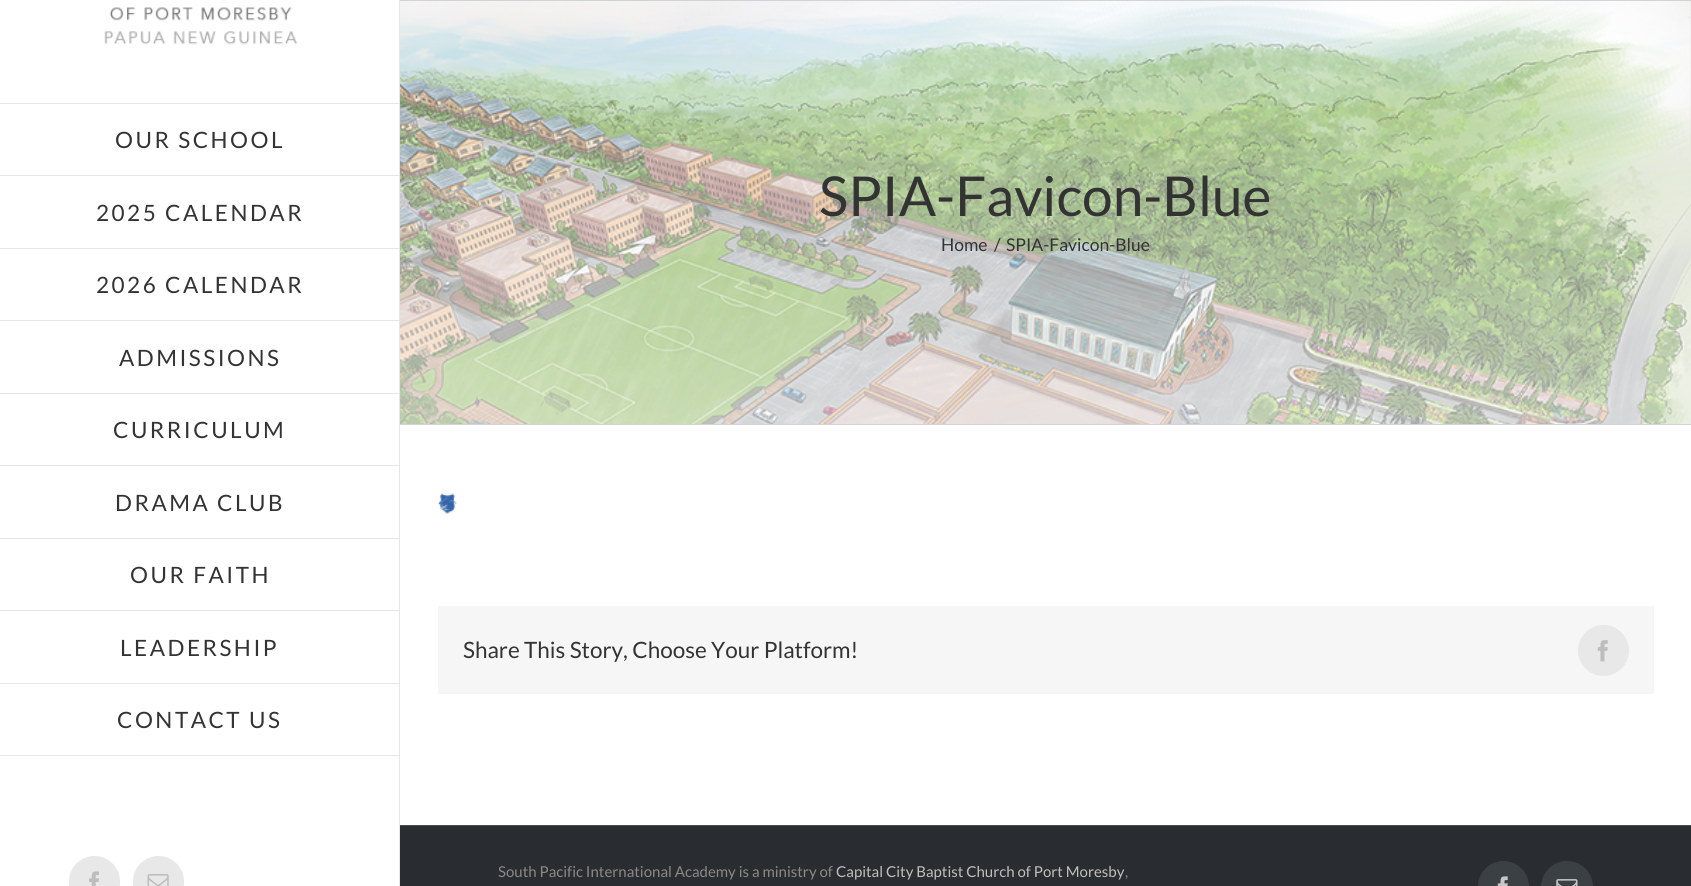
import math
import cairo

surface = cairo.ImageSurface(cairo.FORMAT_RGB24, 1691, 886)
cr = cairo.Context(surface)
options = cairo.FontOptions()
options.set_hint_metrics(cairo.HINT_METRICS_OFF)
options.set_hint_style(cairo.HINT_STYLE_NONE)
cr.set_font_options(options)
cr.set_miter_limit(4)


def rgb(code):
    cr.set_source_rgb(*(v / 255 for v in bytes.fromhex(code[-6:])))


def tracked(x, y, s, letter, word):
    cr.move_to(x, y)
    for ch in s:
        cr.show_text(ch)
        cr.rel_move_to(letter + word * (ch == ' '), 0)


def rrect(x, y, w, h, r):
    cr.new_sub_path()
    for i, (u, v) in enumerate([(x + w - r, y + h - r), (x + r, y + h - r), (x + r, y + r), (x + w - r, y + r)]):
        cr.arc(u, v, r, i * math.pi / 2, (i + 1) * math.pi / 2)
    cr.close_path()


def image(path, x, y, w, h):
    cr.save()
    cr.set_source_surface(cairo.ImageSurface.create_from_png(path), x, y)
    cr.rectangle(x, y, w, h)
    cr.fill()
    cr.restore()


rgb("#ffffff")
cr.paint()
image("img/1.png", 104, 7, 193, 38)
for x, y, w, h, color in [
    (399, 0, 1, 886, "#e5e5e5"),
    (0, 103, 400, 1, "#e5e5e5"),
    (0, 175, 400, 1, "#e5e5e5"),
    (0, 248, 400, 1, "#e5e5e5"),
    (0, 320, 400, 1, "#e5e5e5"),
    (0, 393, 400, 1, "#e5e5e5"),
    (0, 465, 400, 1, "#e5e5e5"),
    (0, 538, 400, 1, "#e5e5e5"),
    (0, 610, 400, 1, "#e5e5e5"),
    (0, 683, 400, 1, "#e5e5e5"),
    (0, 755, 400, 1, "#e5e5e5"),
]:
    rgb(color)
    cr.rectangle(x, y, w, h)
    cr.fill()
rgb("#e8e8e8")
rrect(69.5, 856.5, 50, 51, 25)
cr.fill_preserve()
cr.set_line_width(1)
cr.stroke()
image("img/2.png", 89, 871, 10, 15)
rrect(133.5, 856.5, 50, 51, 25)
cr.fill_preserve()
cr.stroke()
image("img/3.png", 147, 874, 22, 12)
image("img/4.png", 400, 1, 1291, 423)
rgb("#d2d3d4")
cr.rectangle(400, 0, 1291, 1)
cr.fill()
cr.rectangle(400, 424, 1291, 1)
cr.fill()
image("img/5.png", 438, 493, 19, 21)
rgb("#f6f6f6")
cr.rectangle(438, 606, 1216, 88)
cr.fill()
rgb("#e8e8e8")
cr.arc(1603.5, 650.5, 25, 0, 2 * math.pi)
cr.fill_preserve()
cr.stroke()
image("img/6.png", 1597, 640, 11, 22)
rgb("#292c30")
cr.rectangle(400, 826, 1291, 60)
cr.fill()
rgb("#4b4c4d")
cr.rectangle(400, 825, 1291, 1)
cr.fill()
rgb("#3b4045")
rrect(1478.5, 861.5, 50, 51, 25)
cr.fill_preserve()
cr.stroke()
image("img/7.png", 1497, 876, 11, 10)
cr.arc(1567, 887, 25.5, 0, 2 * math.pi)
cr.fill_preserve()
cr.stroke()
image("img/8.png", 1556, 879, 22, 7)
cr.select_font_face("Lato")
cr.set_font_size(22.5)
rgb("#333333")
for x, y, s in [
    (115, 148, "OUR SCHOOL"),
    (96, 221, "2025 CALENDAR"),
    (96, 293, "2026 CALENDAR"),
    (119, 366, "ADMISSIONS"),
    (113, 438, "CURRICULUM"),
    (115, 511, "DRAMA CLUB"),
    (130, 583, "OUR FAITH"),
    (120, 656, "LEADERSHIP"),
    (117, 728, "CONTACT US"),
]:
    tracked(x, y, s, 2.5, 0)
cr.set_font_size(55)
cr.move_to(819, 216)
cr.show_text("SPIA-Favicon-Blue")
cr.set_font_size(17.5)
for x, y, s in [
    (941, 251, "Home"),
    (994, 251, "/"),
    (1006, 251, "SPIA-Favicon-Blue"),
]:
    cr.move_to(x, y)
    cr.show_text(s)
cr.set_font_size(22.5)
cr.move_to(463, 658)
cr.show_text("Share This Story, Choose Your Platform!")
cr.set_font_size(15)
rgb("#8c8989")
cr.move_to(498, 877)
cr.show_text("South Pacific International Academy is a ministry of")
rgb("#bfbfbf")
cr.move_to(836, 877)
cr.show_text("Capital City Baptist Church of Port Moresby")
rgb("#8c8989")
cr.move_to(1125, 877)
cr.show_text(",")
surface.write_to_png("page.png")
